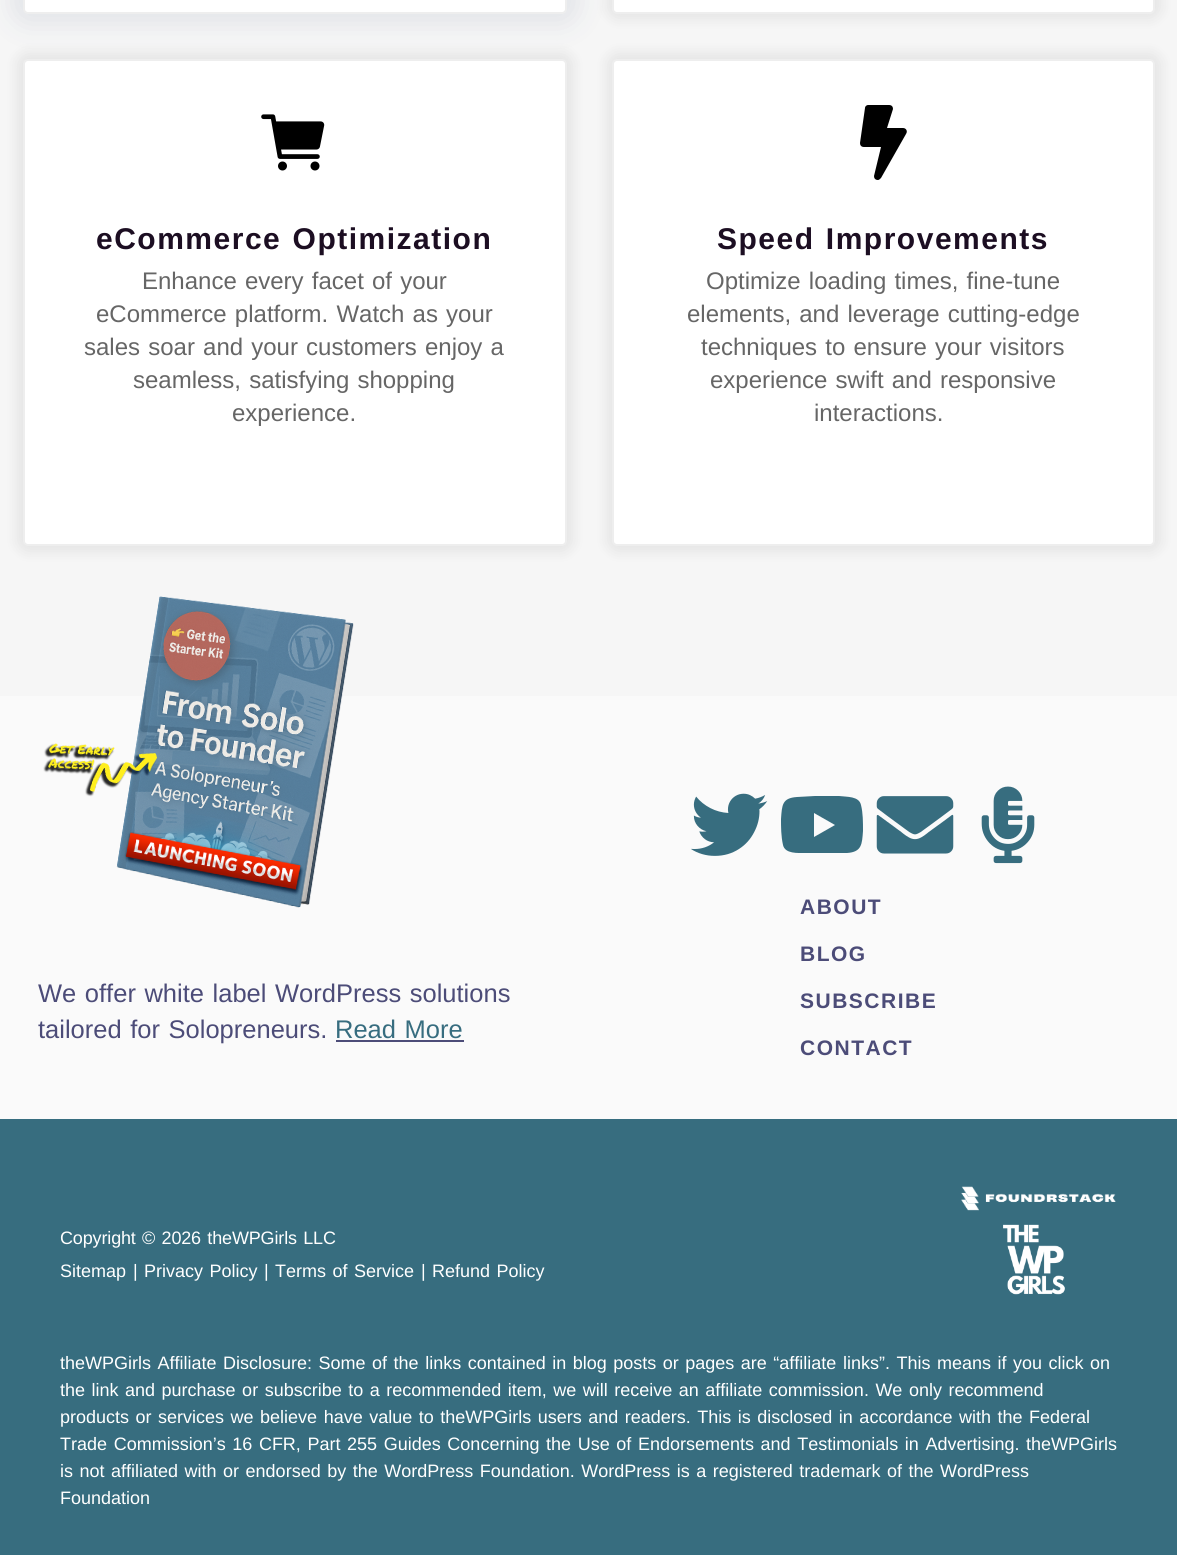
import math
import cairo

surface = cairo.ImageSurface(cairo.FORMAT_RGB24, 1177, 1555)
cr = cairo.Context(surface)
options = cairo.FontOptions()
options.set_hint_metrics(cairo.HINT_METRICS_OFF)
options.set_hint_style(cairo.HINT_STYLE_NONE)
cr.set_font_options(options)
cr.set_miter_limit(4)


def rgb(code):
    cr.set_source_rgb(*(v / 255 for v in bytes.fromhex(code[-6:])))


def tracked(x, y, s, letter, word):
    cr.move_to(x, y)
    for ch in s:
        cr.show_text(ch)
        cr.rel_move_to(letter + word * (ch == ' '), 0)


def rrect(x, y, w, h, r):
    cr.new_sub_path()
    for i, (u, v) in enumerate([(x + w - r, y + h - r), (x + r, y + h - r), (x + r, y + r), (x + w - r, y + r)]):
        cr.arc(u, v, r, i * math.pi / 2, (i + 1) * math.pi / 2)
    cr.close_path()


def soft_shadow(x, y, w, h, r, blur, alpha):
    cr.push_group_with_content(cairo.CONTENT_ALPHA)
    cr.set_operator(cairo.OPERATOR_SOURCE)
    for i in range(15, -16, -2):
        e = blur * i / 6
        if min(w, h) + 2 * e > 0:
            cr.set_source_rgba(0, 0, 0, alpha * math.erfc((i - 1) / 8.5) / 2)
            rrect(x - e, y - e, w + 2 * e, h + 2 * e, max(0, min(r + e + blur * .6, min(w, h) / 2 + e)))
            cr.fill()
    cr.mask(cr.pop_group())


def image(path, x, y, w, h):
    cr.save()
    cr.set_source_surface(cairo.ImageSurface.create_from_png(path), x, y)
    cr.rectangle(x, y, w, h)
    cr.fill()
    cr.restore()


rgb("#f6f6f6")
cr.paint()
rgb("#102d5e")
soft_shadow(12, -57, 566, 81, 15, 14, 0.09)
rgb("#ffffff")
rrect(24, -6, 542, 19, 4)
cr.fill_preserve()
rgb("#eeeeee")
cr.stroke()
rgb("#000000")
soft_shadow(608, -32, 552, 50, 9, 7.5, 0.08)
rgb("#ffffff")
rrect(613, -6, 541, 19, 4)
cr.fill_preserve()
rgb("#eeeeee")
cr.stroke()
rgb("#000000")
soft_shadow(18, 54, 554, 497, 9, 7.5, 0.08)
rgb("#ffffff")
rrect(24, 60, 542, 485, 4)
cr.fill_preserve()
rgb("#eeeeee")
cr.stroke()
image("img/1.png", 261, 114, 64, 57)
rgb("#000000")
soft_shadow(608, 54, 552, 497, 9, 7.5, 0.08)
rgb("#ffffff")
rrect(613, 60, 541, 485, 4)
cr.fill_preserve()
rgb("#eeeeee")
cr.stroke()
rgb("#000000")
cr.new_path()
cr.move_to(903, 128)
cr.line_to(887, 128)
cr.line_to(893, 109)
cr.curve_to(893, 107, 892, 105, 889, 105)
cr.line_to(868, 105)
cr.curve_to(867, 105, 865, 106, 865, 108)
cr.line_to(860, 143)
cr.curve_to(860, 145, 861, 147, 864, 147)
cr.line_to(881, 147)
cr.line_to(874, 176)
cr.curve_to(874, 178, 875, 180, 878, 180)
cr.curve_to(879, 180, 880, 179, 881, 178)
cr.line_to(906, 134)
cr.curve_to(908, 131, 906, 128, 903, 128)
cr.close_path()
cr.fill()
rgb("#fafafa")
cr.rectangle(0, 696, 1177, 423)
cr.fill()
image("img/2.png", 43, 596, 311, 312)
image("img/3.png", 691, 793, 77, 63)
rgb("#376d7f")
cr.new_path()
cr.move_to(861, 805)
cr.curve_to(863, 813, 863, 822, 863, 831)
cr.curve_to(862, 844, 862, 852, 847, 853)
cr.line_to(829, 853)
cr.line_to(805, 853)
cr.curve_to(798, 853, 785, 854, 783, 845)
cr.curve_to(781, 836, 781, 827, 781, 819)
cr.curve_to(782, 805, 782, 798, 797, 797)
cr.line_to(815, 796)
cr.line_to(839, 796)
cr.curve_to(847, 797, 859, 796, 861, 805)
cr.close_path()
cr.move_to(814, 837)
cr.line_to(835, 825)
cr.line_to(814, 813)
cr.close_path()
cr.fill()
image("img/4.png", 876, 796, 78, 58)
image("img/5.png", 981, 786, 54, 78)
rgb("#4c4c78")
cr.rectangle(336, 1040, 128, 2)
cr.fill()
rgb("#376d7f")
cr.rectangle(0, 1119, 1177, 436)
cr.fill()
image("img/6.png", 961, 1186, 155, 25)
image("img/7.png", 1003, 1224, 62, 71)
cr.select_font_face("Liberation Sans", cairo.FONT_SLANT_NORMAL, cairo.FONT_WEIGHT_BOLD)
cr.set_font_size(30)
rgb("#1c0e22")
tracked(96, 249, "eCommerce Optimization", 1.5, 1.5)
cr.select_font_face("Liberation Sans")
cr.set_font_size(24)
rgb("#666666")
for x, y, s in [
    (142, 289, "Enhance every facet of your"),
    (96, 322, "eCommerce platform. Watch as your"),
    (84, 355, "sales soar and your customers enjoy a"),
    (133, 388, "seamless, satisfying shopping"),
]:
    tracked(x, y, s, 0, 1.5)
cr.move_to(232, 421)
cr.show_text("experience.")
cr.select_font_face("Liberation Sans", cairo.FONT_SLANT_NORMAL, cairo.FONT_WEIGHT_BOLD)
cr.set_font_size(30)
rgb("#1c0e22")
tracked(717, 249, "Speed Improvements", 1.5, 1.5)
cr.select_font_face("Liberation Sans")
cr.set_font_size(24)
rgb("#666666")
for x, y, s in [
    (706, 289, "Optimize loading times, fine-tune"),
    (687, 322, "elements, and leverage cutting-edge"),
    (701, 355, "techniques to ensure your visitors"),
    (710, 388, "experience swift and responsive"),
]:
    tracked(x, y, s, 0, 1.5)
cr.move_to(814, 421)
cr.show_text("interactions.")
cr.set_font_size(25.5)
rgb("#4c4c78")
tracked(38, 1002, "We offer white label WordPress solutions", 0, 1.5)
tracked(38, 1038, "tailored for Solopreneurs.", 0, 1.5)
rgb("#376d7f")
tracked(335, 1038, "Read More", 0, 1.5)
cr.select_font_face("Liberation Sans", cairo.FONT_SLANT_NORMAL, cairo.FONT_WEIGHT_BOLD)
cr.set_font_size(21)
rgb("#4c4c78")
for x, y, s in [
    (800, 914, "ABOUT"),
    (800, 961, "BLOG"),
    (800, 1008, "SUBSCRIBE"),
    (800, 1055, "CONTACT"),
]:
    tracked(x, y, s, 1.5, 0)
cr.select_font_face("Liberation Sans")
cr.set_font_size(18)
rgb("#ffffff")
tracked(60, 1244, "Copyright © 2026 theWPGirls LLC", -0.15, 1.5)
cr.move_to(60, 1277)
cr.show_text("Sitemap")
cr.move_to(133, 1277)
cr.show_text("|")
tracked(144, 1277, "Privacy Policy", 0, 1.5)
cr.move_to(264, 1277)
cr.show_text("|")
tracked(275, 1277, "Terms of Service", 0, 1.5)
cr.move_to(421, 1277)
cr.show_text("|")
for x, y, s in [
    (432, 1277, "Refund Policy"),
    (60, 1369, "theWPGirls Affiliate Disclosure: Some of the links contained in blog posts or pages are “affiliate links”. This means if you click on"),
    (60, 1396, "the link and purchase or subscribe to a recommended item, we will receive an affiliate commission. We only recommend"),
    (60, 1423, "products or services we believe have value to theWPGirls users and readers. This is disclosed in accordance with the Federal"),
]:
    tracked(x, y, s, 0, 1.5)
tracked(60, 1450, "Trade Commission’s 16 CFR, Part 255 Guides Concerning the Use of Endorsements and Testimonials in Advertising. theWPGirls", 0, 1.6)
tracked(60, 1477, "is not affiliated with or endorsed by the WordPress Foundation. WordPress is a registered trademark of the WordPress", 0, 1.5)
cr.move_to(60, 1504)
cr.show_text("Foundation")
surface.write_to_png("page.png")
